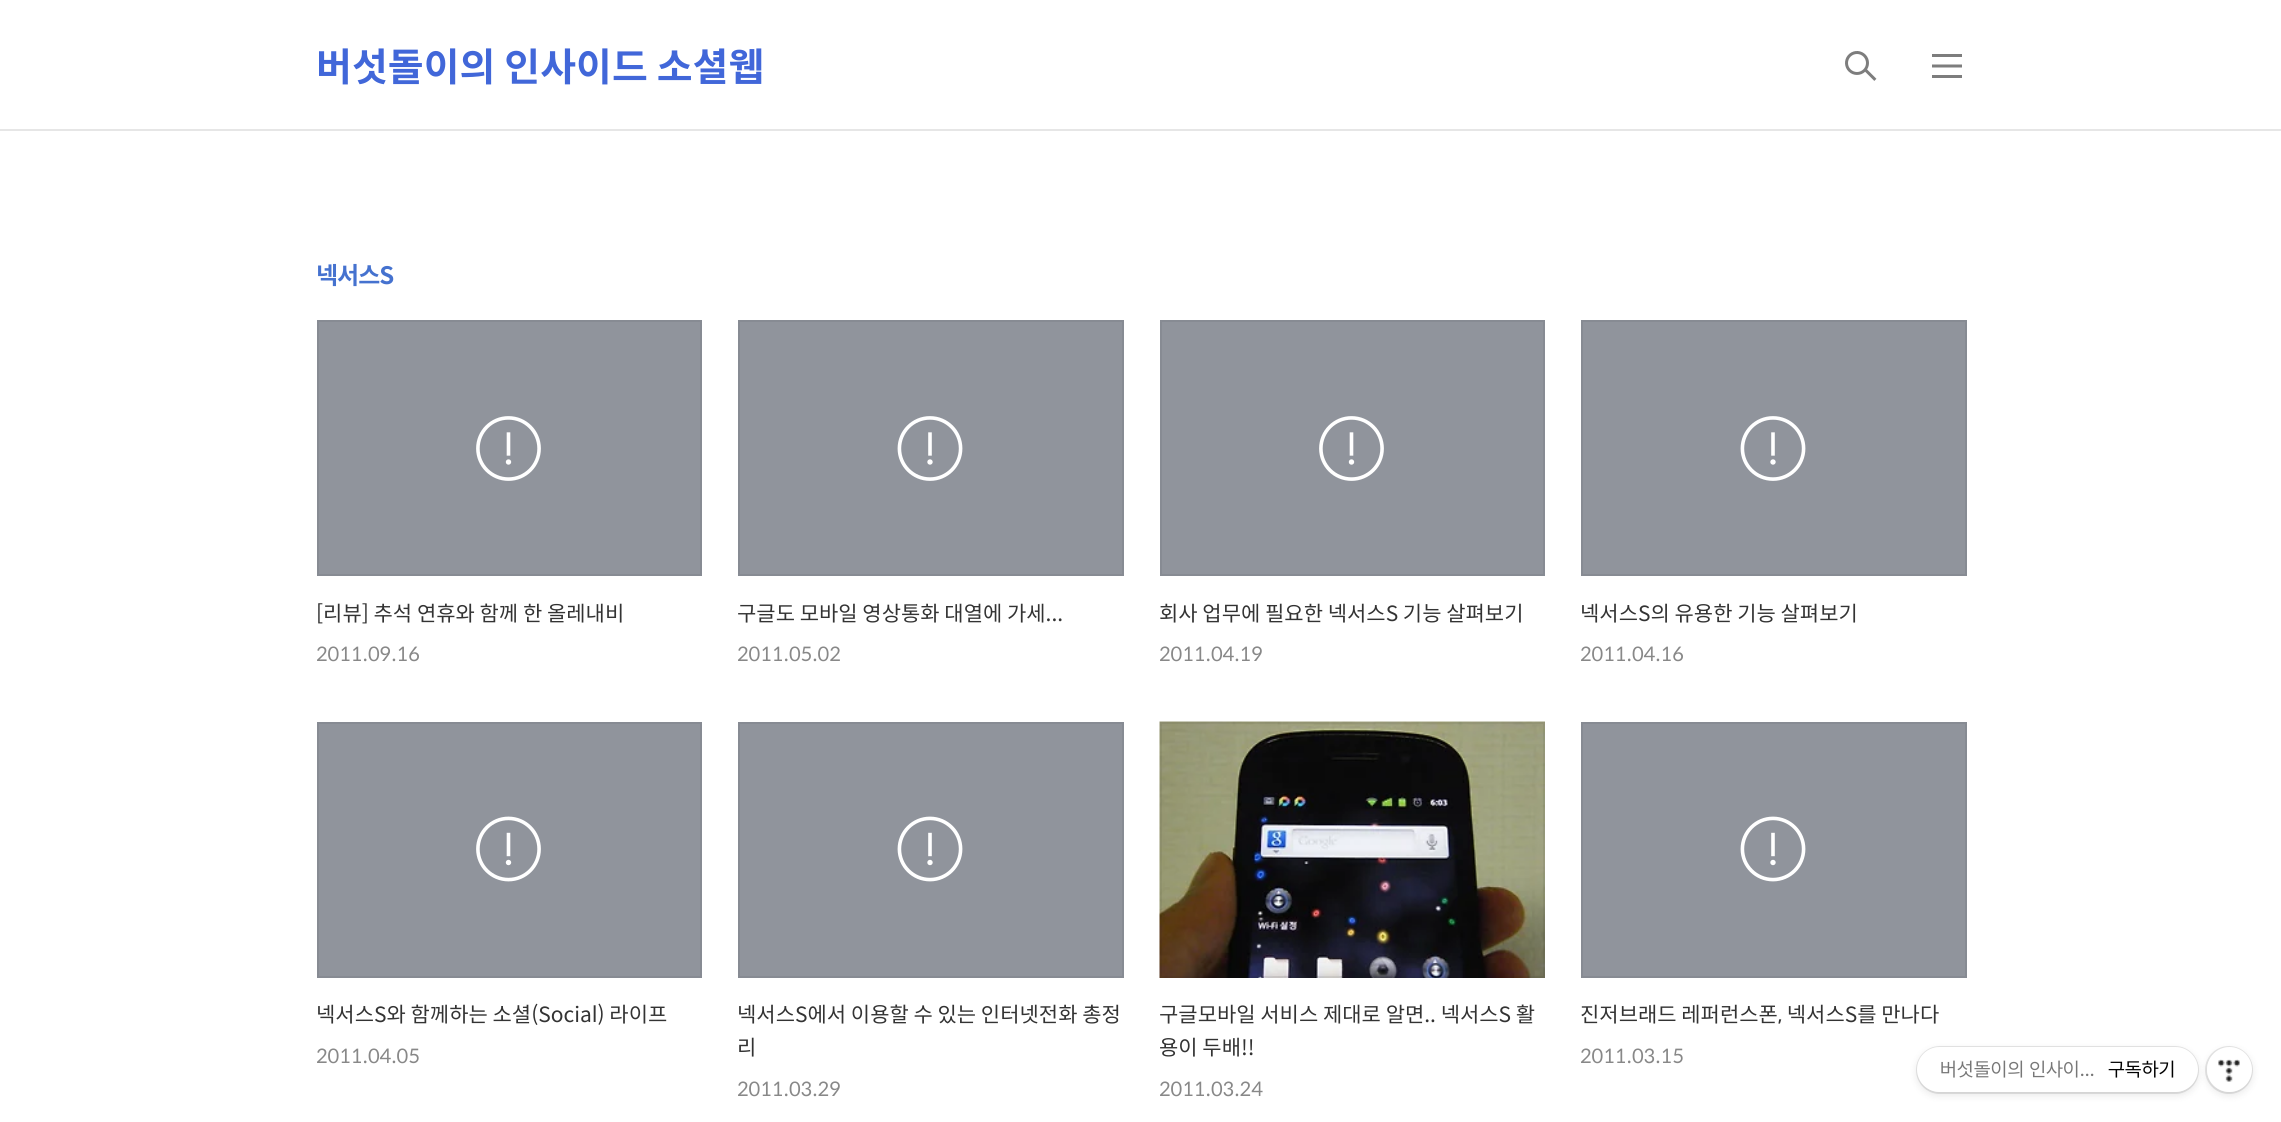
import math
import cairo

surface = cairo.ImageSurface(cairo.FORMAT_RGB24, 2281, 1122)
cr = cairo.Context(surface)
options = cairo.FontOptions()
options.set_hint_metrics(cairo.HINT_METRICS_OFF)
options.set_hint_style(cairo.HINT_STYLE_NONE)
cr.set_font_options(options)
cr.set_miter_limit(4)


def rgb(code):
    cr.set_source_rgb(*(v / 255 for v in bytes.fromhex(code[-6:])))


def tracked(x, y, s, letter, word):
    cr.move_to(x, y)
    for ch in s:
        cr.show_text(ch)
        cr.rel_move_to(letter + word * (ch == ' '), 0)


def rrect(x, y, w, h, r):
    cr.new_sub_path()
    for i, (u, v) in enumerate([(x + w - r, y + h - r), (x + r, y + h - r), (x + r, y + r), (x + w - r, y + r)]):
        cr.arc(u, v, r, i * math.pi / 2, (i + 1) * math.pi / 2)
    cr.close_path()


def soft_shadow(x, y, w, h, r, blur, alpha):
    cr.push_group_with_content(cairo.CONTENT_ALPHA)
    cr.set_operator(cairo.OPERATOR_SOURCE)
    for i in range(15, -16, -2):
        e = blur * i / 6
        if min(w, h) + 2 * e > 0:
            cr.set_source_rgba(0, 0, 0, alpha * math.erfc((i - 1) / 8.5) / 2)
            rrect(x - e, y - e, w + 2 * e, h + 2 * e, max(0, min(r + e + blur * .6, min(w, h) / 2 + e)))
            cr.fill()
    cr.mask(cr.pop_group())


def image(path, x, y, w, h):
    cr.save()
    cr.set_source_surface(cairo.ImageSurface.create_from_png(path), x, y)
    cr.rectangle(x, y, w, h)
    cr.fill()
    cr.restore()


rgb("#ffffff")
cr.paint()
rgb("#e6e6e6")
cr.new_path()
cr.move_to(0, 129)
cr.line_to(0, 131)
cr.line_to(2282, 131)
cr.line_to(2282, 2)
cr.line_to(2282, 129)
cr.close_path()
cr.fill()
image("img/1.png", 1845, 51, 32, 30)
image("img/2.png", 1932, 54, 30, 24)
rgb("#90949c")
cr.rectangle(319, 322, 381, 252)
cr.fill()
image("img/3.png", 476, 416, 65, 65)
cr.rectangle(318, 321, 383, 254)
rgb("#878b93")
cr.stroke()
rgb("#90949c")
cr.rectangle(740, 322, 382, 252)
cr.fill()
image("img/4.png", 897, 416, 66, 65)
cr.rectangle(739, 321, 384, 254)
rgb("#878b93")
cr.stroke()
rgb("#90949c")
cr.rectangle(1162, 322, 381, 252)
cr.fill()
image("img/3.png", 1319, 416, 65, 65)
cr.rectangle(1161, 321, 383, 254)
rgb("#878b93")
cr.stroke()
rgb("#90949c")
cr.rectangle(1583, 322, 382, 252)
cr.fill()
image("img/4.png", 1740, 416, 66, 65)
cr.rectangle(1582, 321, 384, 254)
rgb("#878b93")
cr.stroke()
rgb("#90949c")
cr.rectangle(319, 724, 381, 252)
cr.fill()
image("img/5.png", 476, 816, 65, 66)
cr.rectangle(318, 723, 383, 254)
rgb("#878b93")
cr.stroke()
rgb("#90949c")
cr.rectangle(740, 724, 382, 252)
cr.fill()
image("img/6.png", 897, 816, 66, 66)
cr.rectangle(739, 723, 384, 254)
rgb("#878b93")
cr.stroke()
image("img/7.png", 1159, 721, 386, 257)
cr.rectangle(1161, 723, 383, 254)
cr.set_source_rgba(0, 0, 0, 0.06)
cr.stroke()
rgb("#90949c")
cr.rectangle(1583, 724, 382, 252)
cr.fill()
image("img/6.png", 1740, 816, 66, 66)
cr.rectangle(1582, 723, 384, 254)
rgb("#878b93")
cr.stroke()
rgb("#000000")
soft_shadow(2207, 1050, 45, 45, 22.5, 4, 0.1)
cr.arc(2229, 1070, 23, 0, 2 * math.pi)
cr.set_source_rgba(0, 0, 0, 0.1)
cr.stroke()
rgb("#ffffff")
cr.arc(2229.5, 1069.5, 22.5, 0, 2 * math.pi)
cr.fill()
rgb("#000000")
soft_shadow(1917, 1050, 281, 45, 22.5, 4, 0.1)
rrect(1917, 1047, 281, 46, 23)
cr.set_source_rgba(0, 0, 0, 0.1)
cr.stroke()
rgb("#ffffff")
rrect(1917, 1047, 281, 45, 22.5)
cr.fill()
image("img/8.png", 2218, 1059, 22, 23)
cr.select_font_face("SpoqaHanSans", cairo.FONT_SLANT_NORMAL, cairo.FONT_WEIGHT_BOLD)
cr.set_font_size(39)
rgb("#4167d9")
cr.move_to(316, 81)
cr.show_text("버섯돌이의 인사이드 소셜웹")
cr.set_font_size(24)
rgb("#4572cf")
tracked(316, 284, "넥서스S", -1, 0)
cr.select_font_face("SpoqaHanSans")
cr.set_font_size(21)
rgb("#333333")
cr.move_to(316, 621)
cr.show_text("[리뷰] 추석 연휴와 함께 한 올레내비")
cr.set_font_size(19.5)
rgb("#888888")
cr.move_to(316, 661)
cr.show_text("2011.09.16")
cr.set_font_size(21)
rgb("#333333")
cr.move_to(737, 621)
cr.show_text("구글도 모바일 영상통화 대열에 가세...")
cr.set_font_size(19.5)
rgb("#888888")
cr.move_to(737, 661)
cr.show_text("2011.05.02")
cr.set_font_size(21)
rgb("#333333")
cr.move_to(1159, 621)
cr.show_text("회사 업무에 필요한 넥서스S 기능 살펴보기")
cr.set_font_size(19.5)
rgb("#888888")
cr.move_to(1159, 661)
cr.show_text("2011.04.19")
cr.set_font_size(21)
rgb("#333333")
cr.move_to(1580, 621)
cr.show_text("넥서스S의 유용한 기능 살펴보기")
cr.set_font_size(19.5)
rgb("#888888")
cr.move_to(1580, 661)
cr.show_text("2011.04.16")
cr.set_font_size(21)
rgb("#333333")
cr.move_to(316, 1022)
cr.show_text("넥서스S와 함께하는 소셜(Social) 라이프")
cr.set_font_size(19.5)
rgb("#888888")
cr.move_to(316, 1063)
cr.show_text("2011.04.05")
cr.set_font_size(21)
rgb("#333333")
cr.move_to(737, 1022)
cr.show_text("넥서스S에서 이용할 수 있는 인터넷전화 총정")
cr.move_to(737, 1055)
cr.show_text("리")
cr.set_font_size(19.5)
rgb("#888888")
cr.move_to(737, 1096)
cr.show_text("2011.03.29")
cr.set_font_size(21)
rgb("#333333")
cr.move_to(1159, 1022)
cr.show_text("구글모바일 서비스 제대로 알면.. 넥서스S 활")
cr.move_to(1159, 1055)
cr.show_text("용이 두배!!")
cr.set_font_size(19.5)
rgb("#888888")
cr.move_to(1159, 1096)
cr.show_text("2011.03.24")
cr.set_font_size(21)
rgb("#333333")
cr.move_to(1580, 1022)
cr.show_text("진저브래드 레퍼런스폰, 넥서스S를 만나다")
cr.set_font_size(19.5)
rgb("#888888")
cr.move_to(1580, 1063)
cr.show_text("2011.03.15")
cr.select_font_face("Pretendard")
rgb("#777777")
cr.move_to(1940, 1076)
cr.show_text("버섯돌이의 인사이…")
rgb("#000000")
cr.move_to(2108, 1076)
cr.show_text("구독하기")
surface.write_to_png("page.png")
